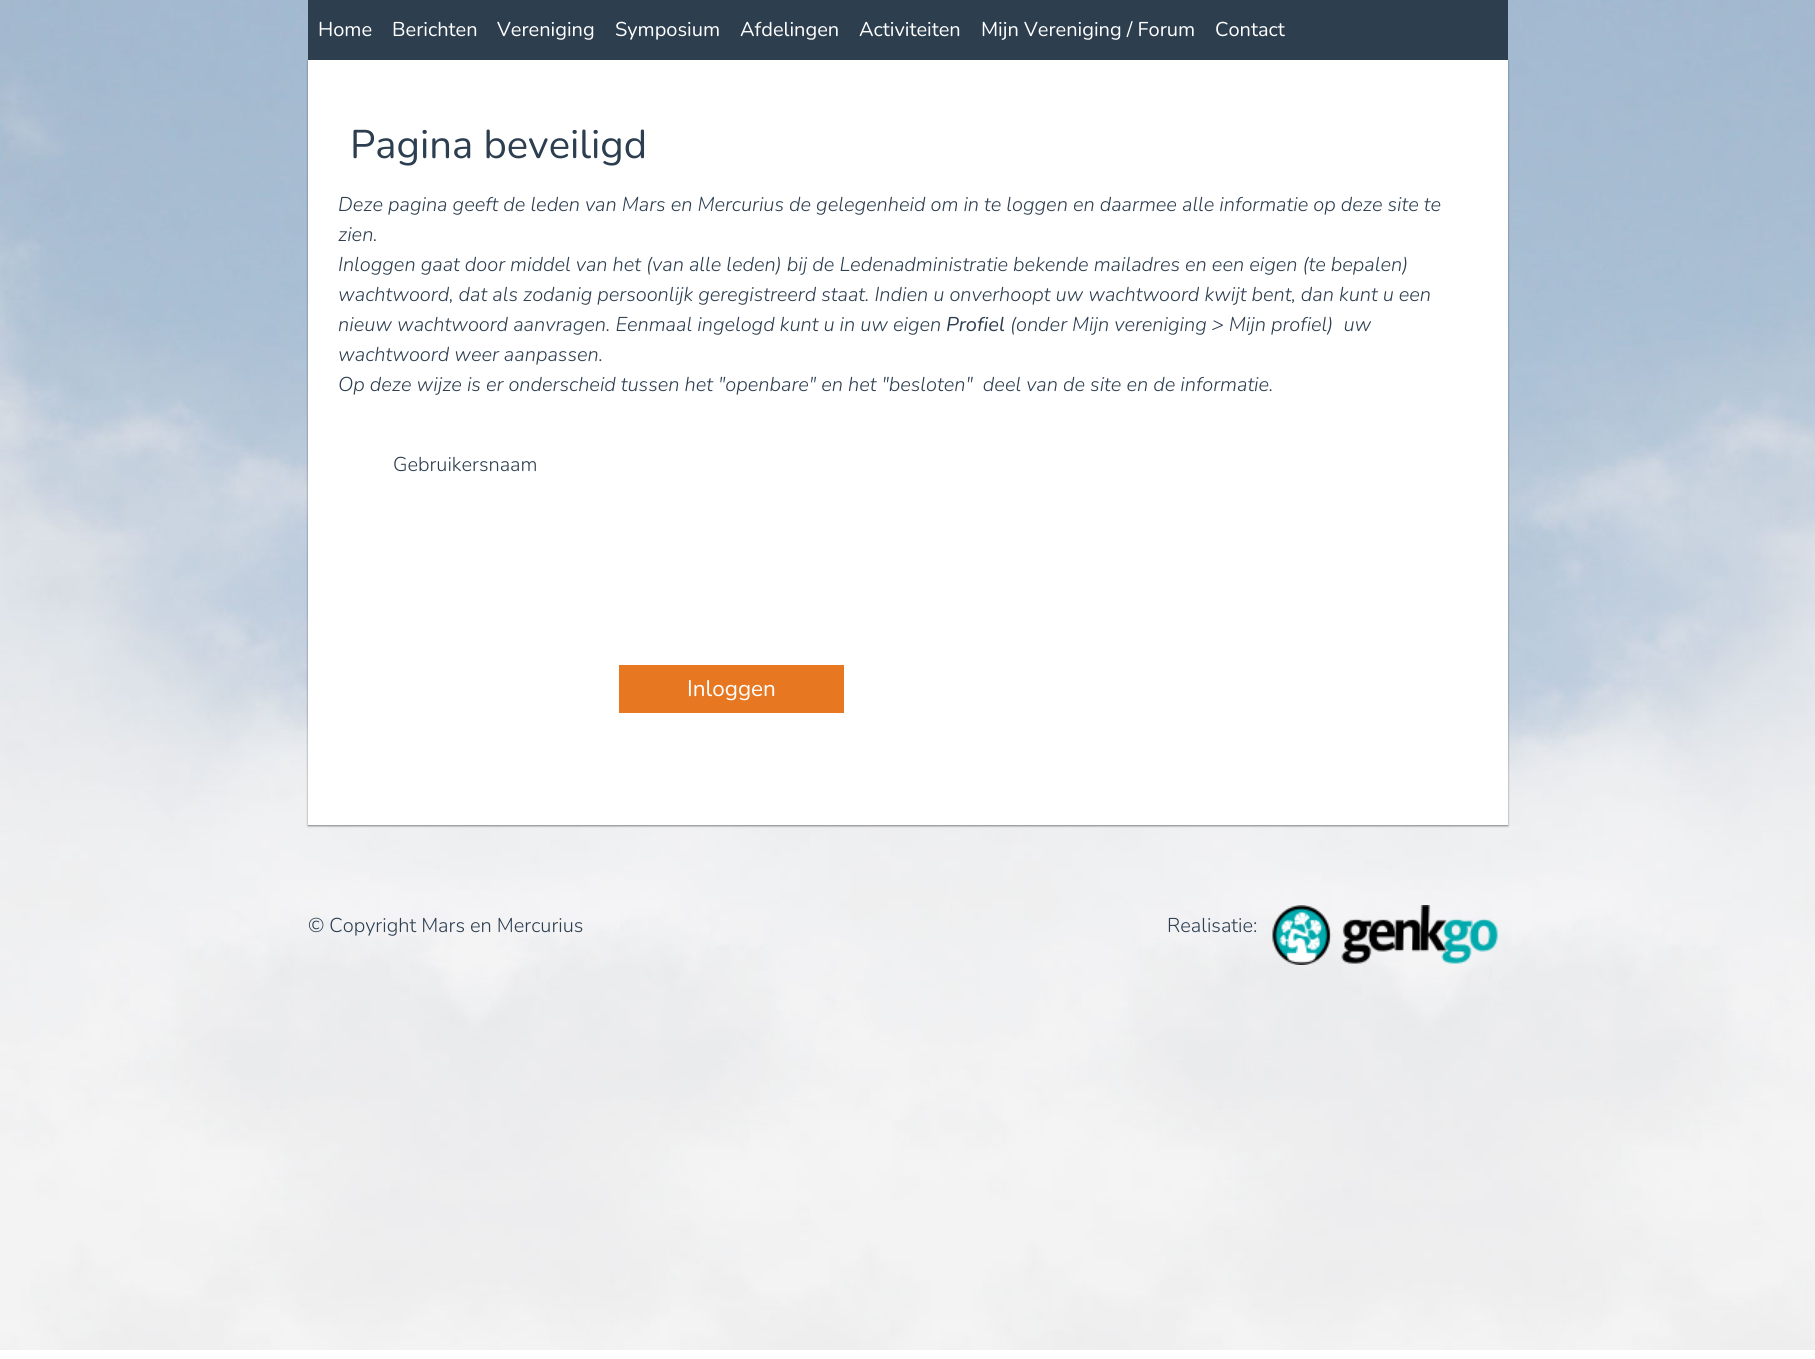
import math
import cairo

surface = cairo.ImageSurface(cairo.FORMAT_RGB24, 1815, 1359)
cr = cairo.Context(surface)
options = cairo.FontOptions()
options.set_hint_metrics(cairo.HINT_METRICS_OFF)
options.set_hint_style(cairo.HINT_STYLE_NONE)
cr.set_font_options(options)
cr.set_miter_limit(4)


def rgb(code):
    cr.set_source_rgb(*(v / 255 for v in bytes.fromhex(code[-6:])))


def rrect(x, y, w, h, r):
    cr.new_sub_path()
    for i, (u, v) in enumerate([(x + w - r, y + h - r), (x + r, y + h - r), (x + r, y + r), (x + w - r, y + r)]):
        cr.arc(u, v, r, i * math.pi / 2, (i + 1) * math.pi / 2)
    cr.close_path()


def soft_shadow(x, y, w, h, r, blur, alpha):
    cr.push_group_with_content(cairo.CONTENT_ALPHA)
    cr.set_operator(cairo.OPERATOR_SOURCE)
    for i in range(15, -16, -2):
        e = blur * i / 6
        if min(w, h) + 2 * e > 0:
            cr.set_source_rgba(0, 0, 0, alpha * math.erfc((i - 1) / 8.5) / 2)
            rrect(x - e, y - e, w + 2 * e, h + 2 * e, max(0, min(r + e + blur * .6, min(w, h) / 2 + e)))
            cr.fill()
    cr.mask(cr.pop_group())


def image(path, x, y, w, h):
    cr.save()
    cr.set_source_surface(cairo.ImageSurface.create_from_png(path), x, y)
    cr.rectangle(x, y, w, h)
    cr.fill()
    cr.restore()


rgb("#ffffff")
cr.paint()
image("img/1.png", 0, 0, 1815, 1350)
rgb("#111111")
soft_shadow(308, 61, 1200, 765, 0, 1, 0.5)
for x, y, w, h, color in [
    (308, 0, 1200, 60, "#2d3e4f"),
    (308, 60, 1200, 765, "#ffffff"),
    (619, 665, 225, 48, "#e87722"),
]:
    rgb(color)
    cr.rectangle(x, y, w, h)
    cr.fill()
image("img/2.png", 1272, 905, 226, 60)
cr.select_font_face("Nunito")
cr.set_font_size(20)
rgb("#ffffff")
for x, y, s in [
    (318, 36, "Home"),
    (392, 36, "Berichten"),
    (497, 36, "Vereniging"),
    (615, 36, "Symposium"),
    (740, 36, "Afdelingen"),
    (859, 36, "Activiteiten"),
    (981, 36, "Mijn Vereniging / Forum"),
    (1215, 36, "Contact"),
]:
    cr.move_to(x, y)
    cr.show_text(s)
cr.set_font_size(40)
rgb("#2c3e50")
cr.move_to(350, 158)
cr.show_text("Pagina beveiligd")
cr.select_font_face("Nunito Light", cairo.FONT_SLANT_ITALIC)
cr.set_font_size(20)
for x, y, s in [
    (338, 211, "Deze pagina geeft de leden van Mars en Mercurius de gelegenheid om in te loggen en daarmee alle informatie op deze site te"),
    (338, 241, "zien."),
    (338, 271, "Inloggen gaat door middel van het (van alle leden) bij de Ledenadministratie bekende mailadres en een eigen (te bepalen)"),
    (338, 301, "wachtwoord, dat als zodanig persoonlijk geregistreerd staat. Indien u onverhoopt uw wachtwoord kwijt bent, dan kunt u een"),
    (338, 331, "nieuw wachtwoord aanvragen. Eenmaal ingelogd kunt u in uw eigen"),
]:
    cr.move_to(x, y)
    cr.show_text(s)
cr.select_font_face("Nunito", cairo.FONT_SLANT_ITALIC)
cr.move_to(946, 331)
cr.show_text("Profiel")
cr.select_font_face("Nunito Light", cairo.FONT_SLANT_ITALIC)
for x, y, s in [
    (1010, 331, "(onder Mijn vereniging > Mijn profiel)  uw"),
    (338, 361, "wachtwoord weer aanpassen."),
    (338, 391, "Op deze wijze is er onderscheid tussen het \"openbare\" en het \"besloten\"  deel van de site en de informatie."),
]:
    cr.move_to(x, y)
    cr.show_text(s)
cr.select_font_face("Nunito Light")
cr.move_to(393, 471)
cr.show_text("Gebruikersnaam")
cr.select_font_face("Nunito")
cr.set_font_size(22.5)
rgb("#ffffff")
cr.move_to(687, 696)
cr.show_text("Inloggen")
cr.select_font_face("Nunito Light")
cr.set_font_size(20)
rgb("#2c3e50")
cr.move_to(308, 932)
cr.show_text("© Copyright Mars en Mercurius")
cr.move_to(1167, 932)
cr.show_text("Realisatie:")
surface.write_to_png("page.png")
